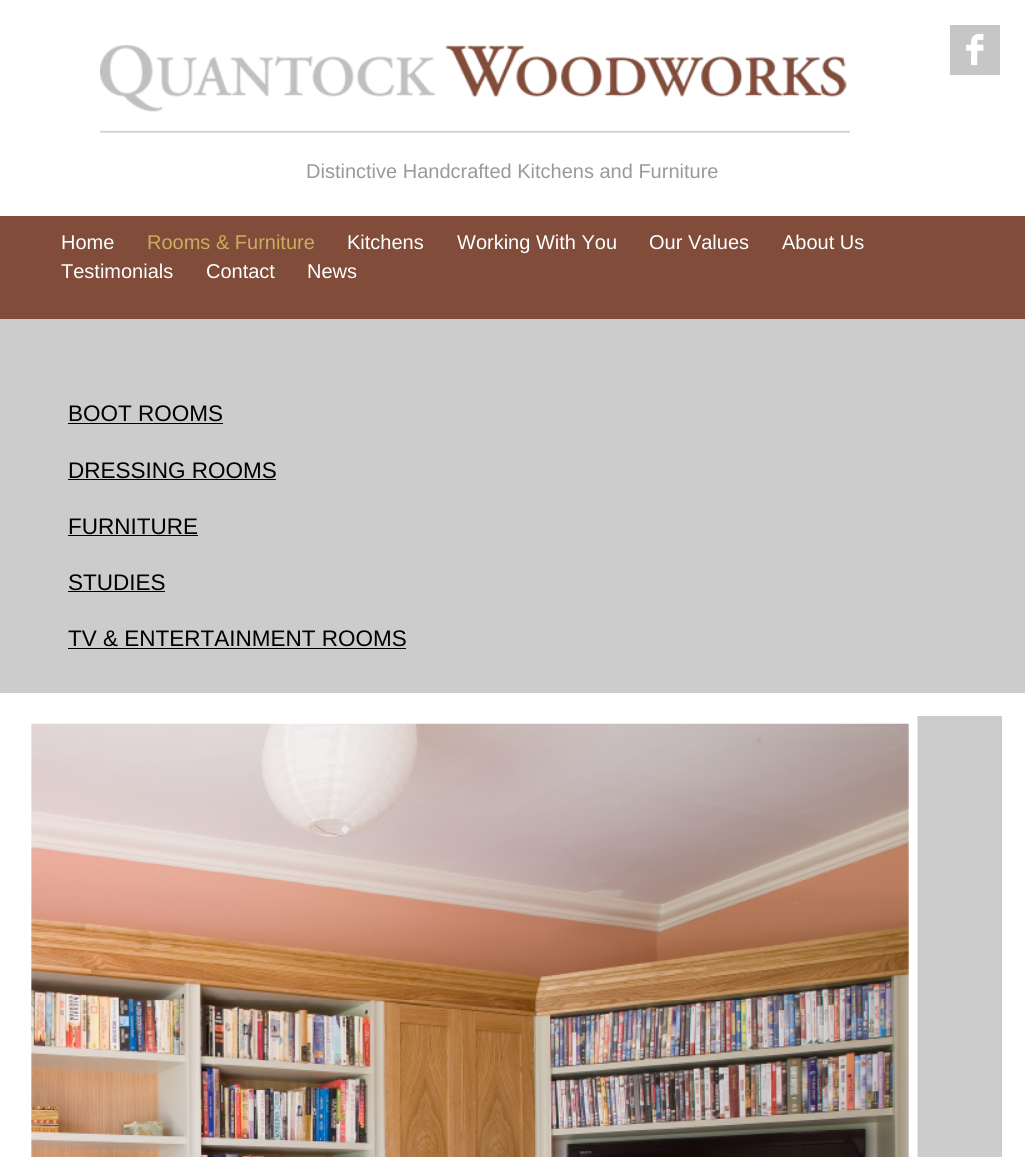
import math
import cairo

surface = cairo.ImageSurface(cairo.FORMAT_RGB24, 1025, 1157)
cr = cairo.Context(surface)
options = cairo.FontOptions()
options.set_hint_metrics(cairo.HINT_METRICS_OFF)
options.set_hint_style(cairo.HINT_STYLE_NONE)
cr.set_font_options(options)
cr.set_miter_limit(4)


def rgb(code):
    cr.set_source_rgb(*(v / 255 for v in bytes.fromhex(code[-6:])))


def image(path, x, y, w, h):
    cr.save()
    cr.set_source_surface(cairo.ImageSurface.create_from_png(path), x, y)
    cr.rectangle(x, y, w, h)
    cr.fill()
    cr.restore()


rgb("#cccccc")
cr.paint()
rgb("#ffffff")
cr.rectangle(0, 0, 1025, 216)
cr.fill()
image("img/1.png", 100, 45, 750, 88)
image("img/2.png", 950, 25, 50, 50)
for x, y, w, h, color in [
    (0, 216, 1025, 103, "#814c3a"),
    (68, 423, 155, 1, "#000000"),
    (68, 479, 208, 1, "#000000"),
    (68, 535, 130, 1, "#000000"),
    (68, 591, 97, 1, "#000000"),
    (68, 648, 338, 1, "#000000"),
]:
    rgb(color)
    cr.rectangle(x, y, w, h)
    cr.fill()
cr.rectangle(10, 703, 1005, 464)
rgb("#ffffff")
cr.set_line_width(20)
cr.stroke()
cr.rectangle(21.5, 714.5, 982, 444)
cr.set_line_width(3)
cr.stroke()
image("img/3.png", 23, 716, 895, 441)
cr.select_font_face("Liberation Sans")
cr.set_font_size(20)
rgb("#999999")
cr.move_to(306, 178)
cr.show_text("Distinctive Handcrafted Kitchens and Furniture")
rgb("#ffffff")
cr.move_to(61, 249)
cr.show_text("Home")
rgb("#cbac61")
cr.move_to(147, 249)
cr.show_text("Rooms & Furniture")
rgb("#ffffff")
for x, y, s in [
    (347, 249, "Kitchens"),
    (457, 249, "Working With You"),
    (649, 249, "Our Values"),
    (782, 249, "About Us"),
    (61, 278, "Testimonials"),
    (206, 278, "Contact"),
    (307, 278, "News"),
]:
    cr.move_to(x, y)
    cr.show_text(s)
cr.set_font_size(22.5)
rgb("#000000")
for x, y, s in [
    (68, 421, "BOOT ROOMS"),
    (68, 478, "DRESSING ROOMS"),
    (68, 534, "FURNITURE"),
    (68, 590, "STUDIES"),
    (68, 646, "TV & ENTERTAINMENT ROOMS"),
]:
    cr.move_to(x, y)
    cr.show_text(s)
surface.write_to_png("page.png")
